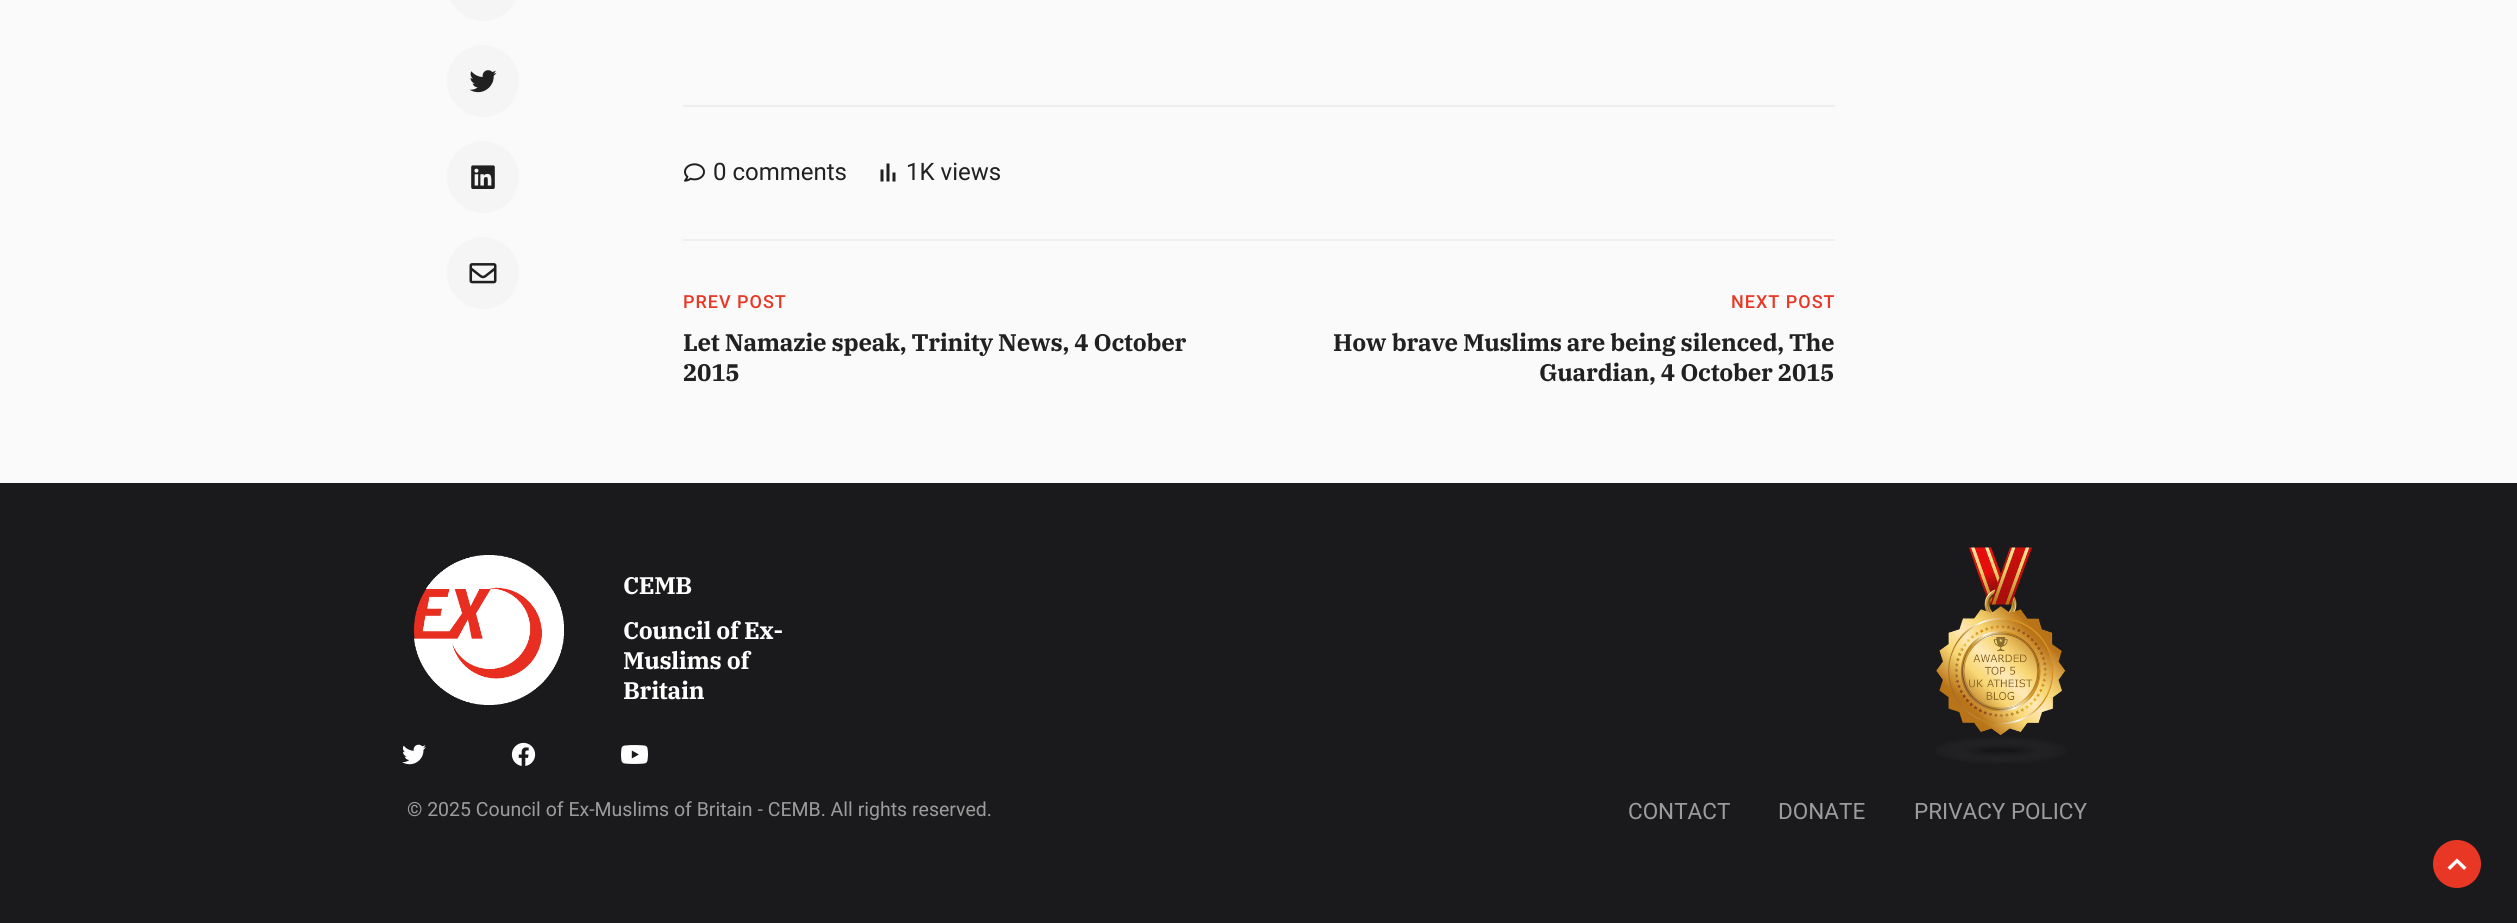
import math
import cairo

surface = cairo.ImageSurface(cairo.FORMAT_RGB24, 2517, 923)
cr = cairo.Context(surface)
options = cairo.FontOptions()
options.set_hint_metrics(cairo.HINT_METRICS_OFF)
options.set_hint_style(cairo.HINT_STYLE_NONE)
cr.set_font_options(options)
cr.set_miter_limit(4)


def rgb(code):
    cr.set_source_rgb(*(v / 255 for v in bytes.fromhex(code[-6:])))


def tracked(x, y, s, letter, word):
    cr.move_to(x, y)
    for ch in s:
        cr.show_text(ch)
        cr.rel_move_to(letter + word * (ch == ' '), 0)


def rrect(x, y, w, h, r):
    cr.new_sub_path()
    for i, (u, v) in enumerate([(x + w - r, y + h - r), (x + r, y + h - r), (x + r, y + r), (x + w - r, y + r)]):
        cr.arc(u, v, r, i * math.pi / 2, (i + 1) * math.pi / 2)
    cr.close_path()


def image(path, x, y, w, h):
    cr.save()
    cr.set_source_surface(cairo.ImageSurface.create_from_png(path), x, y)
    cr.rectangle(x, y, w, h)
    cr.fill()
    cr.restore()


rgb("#fafafa")
cr.paint()
rgb("#f5f5f5")
rrect(447, -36, 72, 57, 36)
cr.fill()
cr.arc(483, 81, 36, 0, 2 * math.pi)
cr.fill()
image("img/1.png", 469, 70, 28, 23)
cr.arc(483, 177, 36, 0, 2 * math.pi)
cr.fill()
image("img/2.png", 471, 165, 24, 24)
cr.arc(483, 273, 36, 0, 2 * math.pi)
cr.fill()
image("img/3.png", 469, 263, 28, 21)
rgb("#eeeeee")
cr.rectangle(683, 105, 1152, 2)
cr.fill()
image("img/4.png", 684, 163, 21, 19)
image("img/5.png", 880, 163, 16, 19)
cr.rectangle(683, 239, 1152, 2)
cr.fill()
rgb("#1a1a1c")
cr.rectangle(0, 483, 2517, 440)
cr.fill()
image("img/6.png", 414, 555, 150, 150)
image("img/7.png", 402, 744, 24, 21)
image("img/8.png", 511, 742, 25, 24)
image("img/9.png", 621, 745, 27, 19)
image("img/10.png", 1936, 547, 130, 216)
rgb("#e83725")
cr.arc(2457, 864, 24, 0, 2 * math.pi)
cr.fill()
rgb("#ffffff")
cr.new_path()
cr.move_to(2466.5, 867.5)
cr.line_to(2464, 870)
cr.line_to(2457, 863)
cr.line_to(2450, 870)
cr.line_to(2447.5, 867.5)
cr.line_to(2457, 858.5)
cr.close_path()
cr.fill()
cr.select_font_face("Roboto")
cr.set_font_size(24)
rgb("#212121")
cr.move_to(713, 180)
cr.show_text("0 comments")
cr.move_to(906, 180)
cr.show_text("1K views")
cr.select_font_face("Roboto Medium")
cr.set_font_size(18)
rgb("#e83725")
tracked(683, 308, "PREV POST", 1, 0)
cr.select_font_face("IBM Plex Serif", cairo.FONT_SLANT_NORMAL, cairo.FONT_WEIGHT_BOLD)
cr.set_font_size(24)
rgb("#212121")
tracked(683, 351, "Let Namazie speak, Trinity News, 4 October", -0.3, 0)
tracked(683, 381, "2015", -0.3, 0)
cr.select_font_face("Roboto Medium")
cr.set_font_size(18)
rgb("#e83725")
tracked(1731, 308, "NEXT POST", 1, 0)
cr.select_font_face("IBM Plex Serif", cairo.FONT_SLANT_NORMAL, cairo.FONT_WEIGHT_BOLD)
cr.set_font_size(24)
rgb("#212121")
tracked(1333, 351, "How brave Muslims are being silenced, The", -0.3, 0)
tracked(1539, 381, "Guardian, 4 October 2015", -0.3, 0)
rgb("#ffffff")
for x, y, s in [
    (623, 594, "CEMB"),
    (623, 639, "Council of Ex-"),
    (623, 669, "Muslims of"),
    (623, 699, "Britain"),
]:
    tracked(x, y, s, -0.3, 0)
cr.select_font_face("Roboto")
cr.set_font_size(19.5)
rgb("#9c9c9c")
cr.move_to(407, 816)
cr.show_text("© 2025 Council of Ex-Muslims of Britain - CEMB. All rights reserved.")
cr.set_font_size(22.5)
for x, y, s in [
    (1628, 819, "CONTACT"),
    (1778, 819, "DONATE"),
    (1914, 819, "PRIVACY POLICY"),
]:
    cr.move_to(x, y)
    cr.show_text(s)
surface.write_to_png("page.png")
